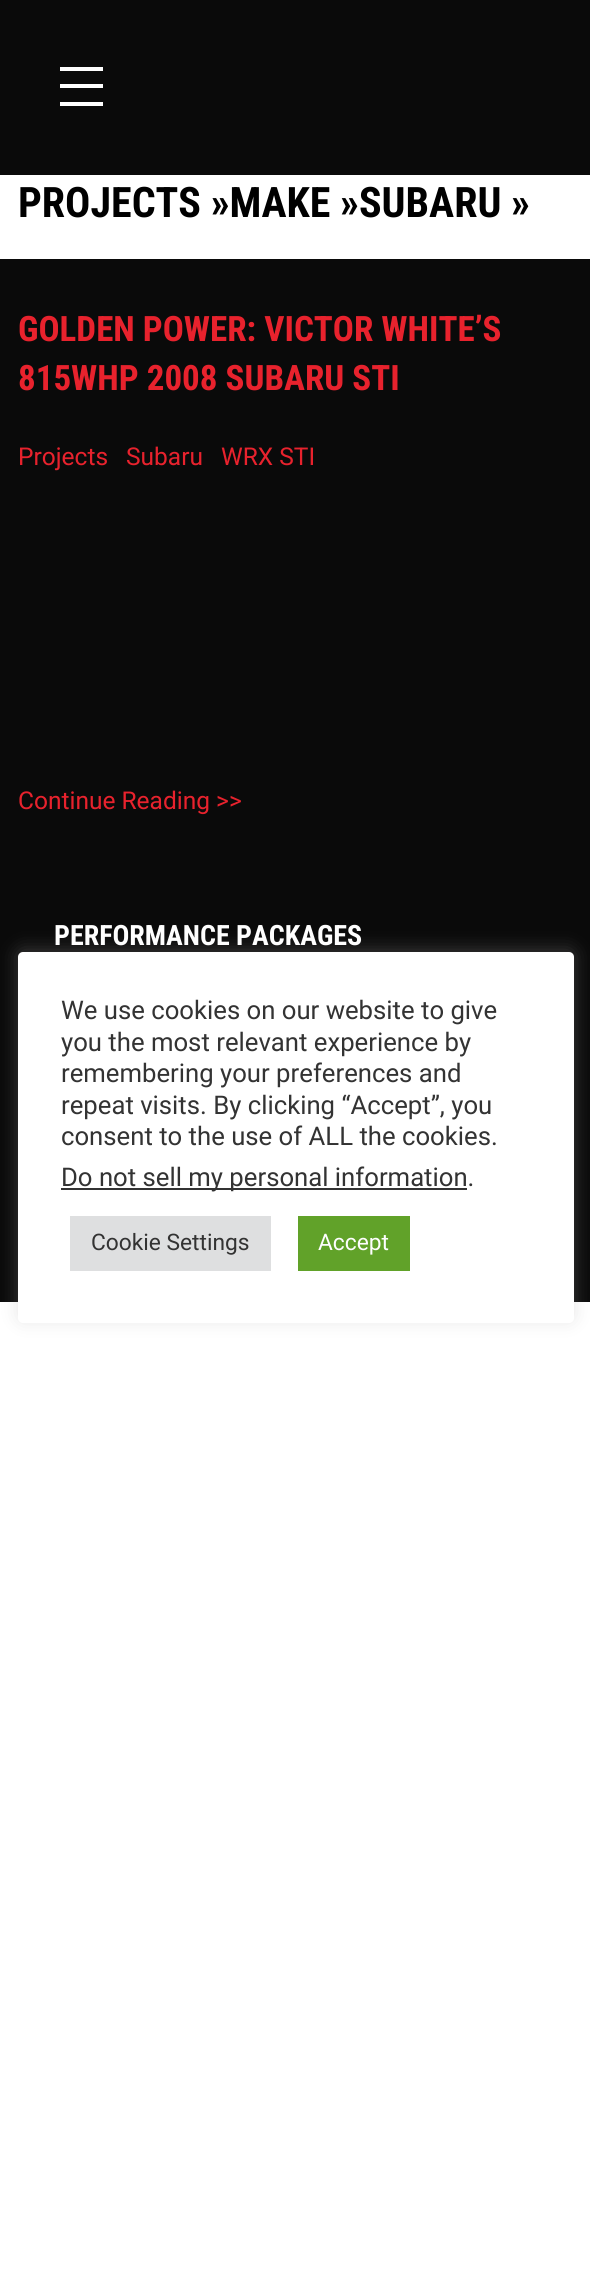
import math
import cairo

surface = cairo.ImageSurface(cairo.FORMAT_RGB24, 590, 2290)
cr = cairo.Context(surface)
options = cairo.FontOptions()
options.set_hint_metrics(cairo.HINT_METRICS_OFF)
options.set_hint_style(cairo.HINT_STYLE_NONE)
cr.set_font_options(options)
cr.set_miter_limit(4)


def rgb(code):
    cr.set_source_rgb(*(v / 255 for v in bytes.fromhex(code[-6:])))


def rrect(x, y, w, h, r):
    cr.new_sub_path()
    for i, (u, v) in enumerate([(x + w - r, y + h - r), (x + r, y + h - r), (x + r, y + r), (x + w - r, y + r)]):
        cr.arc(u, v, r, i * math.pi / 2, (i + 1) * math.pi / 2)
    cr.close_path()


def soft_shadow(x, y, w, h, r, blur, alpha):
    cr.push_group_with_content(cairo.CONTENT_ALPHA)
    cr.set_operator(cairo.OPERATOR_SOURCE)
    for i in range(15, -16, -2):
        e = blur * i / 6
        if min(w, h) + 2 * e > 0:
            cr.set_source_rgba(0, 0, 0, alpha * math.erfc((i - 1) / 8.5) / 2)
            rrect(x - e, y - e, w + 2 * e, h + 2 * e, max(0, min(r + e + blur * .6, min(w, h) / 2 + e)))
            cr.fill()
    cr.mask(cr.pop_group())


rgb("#ffffff")
cr.paint()
for x, y, w, h, color in [
    (0, 0, 590, 175, "#0a0a0a"),
    (60, 67, 43, 4, "#fefefe"),
    (60, 84, 43, 4, "#fefefe"),
    (60, 102, 43, 4, "#fefefe"),
    (0, 259, 590, 1043, "#0a0a0a"),
]:
    rgb(color)
    cr.rectangle(x, y, w, h)
    cr.fill()
rgb("#acabab")
soft_shadow(18, 950, 556, 371, 5, 9, 0.3)
rgb("#ffffff")
rrect(18, 952, 556, 371, 5)
cr.fill()
for x, y, w, h, color in [
    (61, 1188, 406, 2, "#333333"),
    (70, 1216, 201, 55, "#dedfe0"),
    (298, 1216, 112, 55, "#61a229"),
]:
    rgb(color)
    cr.rectangle(x, y, w, h)
    cr.fill()
cr.select_font_face("Roboto Condensed", cairo.FONT_SLANT_NORMAL, cairo.FONT_WEIGHT_BOLD)
cr.set_font_size(42)
rgb("#000000")
cr.move_to(18, 217)
cr.show_text("PROJECTS »MAKE »SUBARU »")
cr.set_font_size(35)
rgb("#e8222d")
cr.move_to(18, 341)
cr.show_text("GOLDEN POWER: VICTOR WHITE’S")
cr.move_to(18, 390)
cr.show_text("815WHP 2008 SUBARU STI")
cr.select_font_face("Roboto")
cr.set_font_size(24.5)
for x, y, s in [
    (18, 465, "Projects"),
    (126, 465, "Subaru"),
    (221, 465, "WRX STI"),
    (18, 809, "Continue Reading >>"),
]:
    cr.move_to(x, y)
    cr.show_text(s)
cr.select_font_face("Roboto Condensed", cairo.FONT_SLANT_NORMAL, cairo.FONT_WEIGHT_BOLD)
cr.set_font_size(28)
rgb("#fefefe")
cr.move_to(54, 945)
cr.show_text("PERFORMANCE PACKAGES")
cr.select_font_face("Roboto")
cr.set_font_size(25.7)
rgb("#333333")
for x, y, s in [
    (61, 1019, "We use cookies on our website to give"),
    (61, 1051, "you the most relevant experience by"),
    (61, 1082, "remembering your preferences and"),
    (61, 1114, "repeat visits. By clicking “Accept”, you"),
    (61, 1145, "consent to the use of ALL the cookies."),
    (61, 1186, "Do not sell my personal information."),
]:
    cr.move_to(x, y)
    cr.show_text(s)
cr.set_font_size(22.75)
cr.move_to(91, 1250)
cr.show_text("Cookie Settings")
rgb("#fefefe")
cr.move_to(318, 1250)
cr.show_text("Accept")
surface.write_to_png("page.png")
